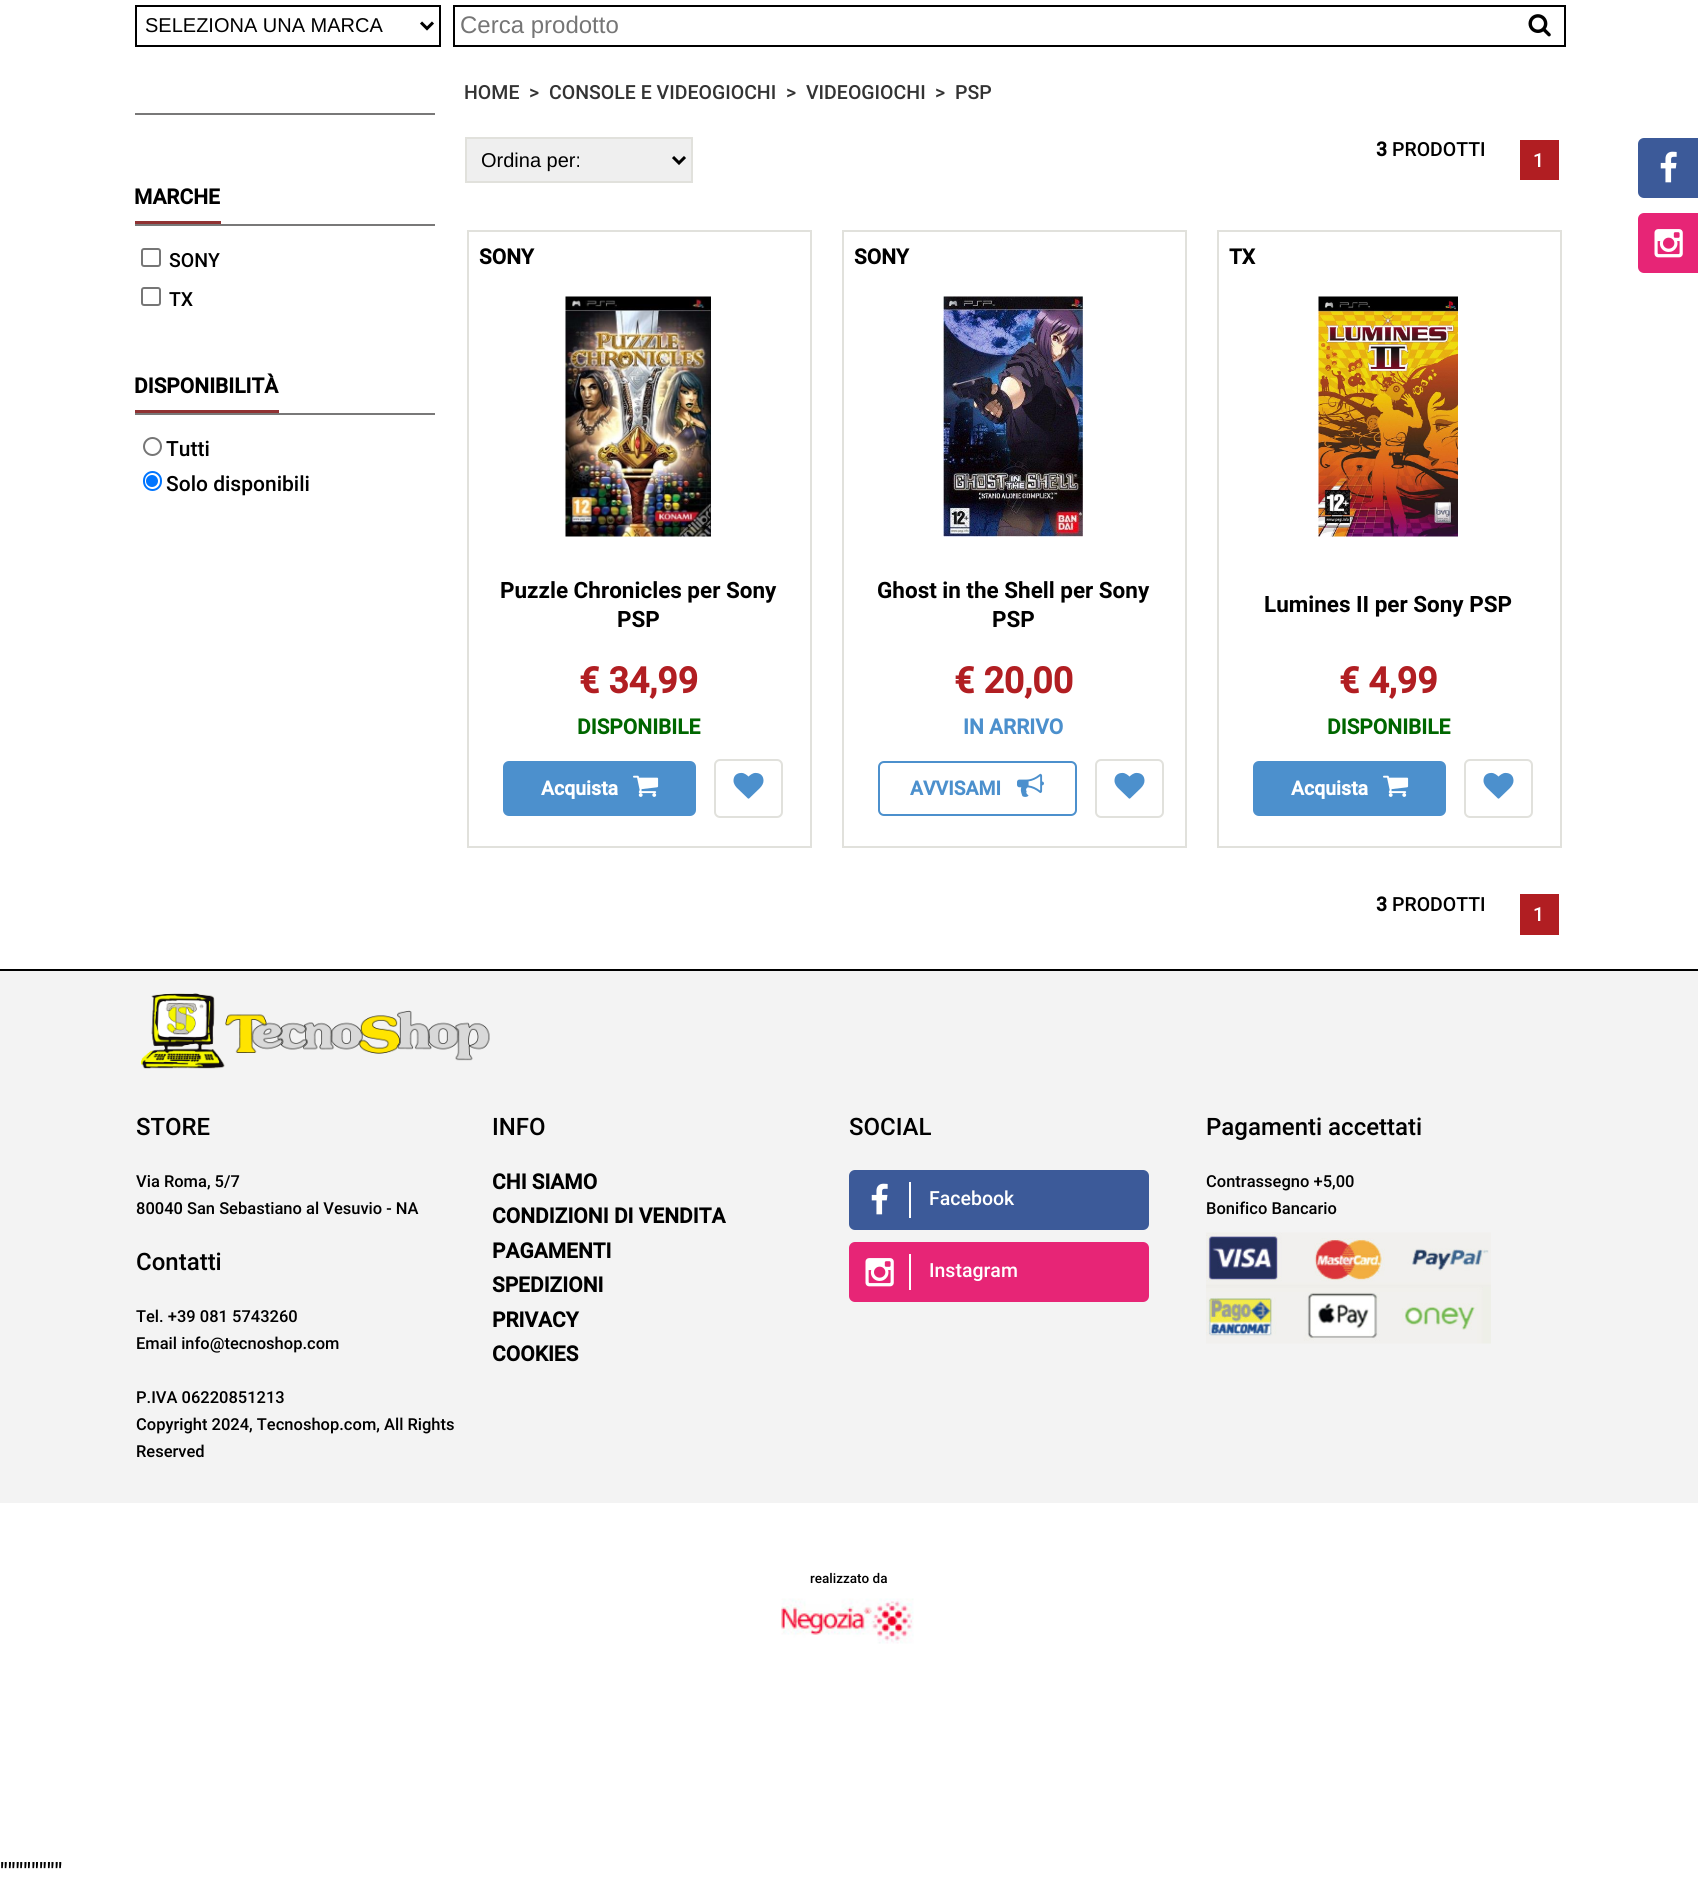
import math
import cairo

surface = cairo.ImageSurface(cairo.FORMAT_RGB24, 1698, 1893)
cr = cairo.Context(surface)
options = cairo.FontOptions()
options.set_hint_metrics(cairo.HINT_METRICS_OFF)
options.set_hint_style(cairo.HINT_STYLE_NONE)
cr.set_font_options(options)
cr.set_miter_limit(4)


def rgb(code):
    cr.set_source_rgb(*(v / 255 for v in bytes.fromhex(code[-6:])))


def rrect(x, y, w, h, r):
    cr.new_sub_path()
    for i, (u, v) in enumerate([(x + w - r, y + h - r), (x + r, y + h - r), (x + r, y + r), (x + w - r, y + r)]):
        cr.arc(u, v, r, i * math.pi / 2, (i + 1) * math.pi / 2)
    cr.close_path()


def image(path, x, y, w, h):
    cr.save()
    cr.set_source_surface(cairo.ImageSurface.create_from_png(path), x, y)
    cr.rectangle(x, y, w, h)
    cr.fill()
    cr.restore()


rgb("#ffffff")
cr.paint()
cr.rectangle(136, 6, 304, 40)
rgb("#000000")
cr.stroke()
cr.new_path()
cr.move_to(421, 22.5)
cr.line_to(427, 28.5)
cr.line_to(433, 22.5)
cr.set_line_width(3)
cr.stroke()
cr.rectangle(454, 6, 1111, 40)
cr.set_line_width(2)
cr.stroke()
image("img/1.png", 1528, 14, 23, 23)
for x, y, w, h, color in [
    (135, 113, 300, 2, "#797878"),
    (135, 224, 300, 2, "#797878"),
    (135, 221, 86, 3, "#903233"),
]:
    rgb(color)
    cr.rectangle(x, y, w, h)
    cr.fill()
rrect(142, 249, 18, 17, 2)
rgb("#767676")
cr.stroke()
rrect(142, 288, 18, 17, 2)
cr.stroke()
rgb("#797878")
cr.rectangle(135, 413, 300, 2)
cr.fill()
rgb("#903233")
cr.rectangle(135, 410, 144, 3)
cr.fill()
cr.arc(152.5, 446.5, 8.5, 0, 2 * math.pi)
rgb("#767676")
cr.stroke()
rrect(144, 472, 17, 18, 8.5)
rgb("#0075ff")
cr.stroke()
cr.arc(152, 481, 6, 0, 2 * math.pi)
cr.fill()
rgb("#efefef")
cr.rectangle(466, 138, 226, 44)
cr.fill_preserve()
rgb("#e1e1dc")
cr.stroke()
cr.new_path()
cr.move_to(673, 157)
cr.line_to(679, 163)
cr.line_to(685, 157)
rgb("#000000")
cr.set_line_width(3)
cr.stroke()
rgb("#b11e22")
cr.rectangle(1520, 140, 39, 40)
cr.fill()
cr.rectangle(468, 231, 343, 616)
rgb("#e1e1dc")
cr.set_line_width(2)
cr.stroke()
image("img/2.png", 565, 296, 146, 241)
rgb("#4c90cd")
rrect(504, 762, 191, 53, 5)
cr.fill_preserve()
cr.stroke()
image("img/3.png", 633, 775, 26, 22)
rrect(715, 760, 67, 57, 5)
rgb("#e1e1dc")
cr.stroke()
image("img/4.png", 733, 772, 31, 27)
cr.rectangle(843, 231, 343, 616)
cr.stroke()
image("img/5.png", 943, 296, 140, 241)
rrect(879, 762, 197, 53, 5)
rgb("#4c90cd")
cr.stroke()
image("img/6.png", 1017, 773, 27, 24)
rrect(1096, 760, 67, 57, 5)
rgb("#e1e1dc")
cr.stroke()
image("img/4.png", 1114, 772, 31, 27)
cr.rectangle(1218, 231, 343, 616)
cr.stroke()
image("img/7.png", 1318, 296, 140, 241)
rgb("#4c90cd")
rrect(1254, 762, 191, 53, 5)
cr.fill_preserve()
cr.stroke()
image("img/3.png", 1383, 775, 26, 22)
rrect(1465, 760, 67, 57, 5)
rgb("#e1e1dc")
cr.stroke()
image("img/4.png", 1483, 772, 31, 27)
rgb("#b11e22")
cr.rectangle(1520, 894, 39, 41)
cr.fill()
rgb("#3c5a99")
rrect(1638, 138, 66, 60, 6)
cr.fill()
image("img/8.png", 1660, 151, 17, 32)
rgb("#e72576")
rrect(1638, 213, 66, 60, 6)
cr.fill()
image("img/9.png", 1654, 229, 29, 29)
rgb("#f3f3f3")
cr.rectangle(0, 971, 1698, 532)
cr.fill()
rgb("#000000")
cr.rectangle(0, 969, 1698, 2)
cr.fill()
image("img/10.png", 140, 993, 350, 76)
rgb("#3c5a99")
rrect(849, 1170, 300, 60, 6)
cr.fill()
rgb("#ffffff")
cr.rectangle(909, 1182, 2, 36)
cr.fill()
image("img/8.png", 871, 1183, 17, 32)
rgb("#e72576")
rrect(849, 1242, 300, 60, 6)
cr.fill()
rgb("#ffffff")
cr.rectangle(909, 1254, 2, 36)
cr.fill()
image("img/9.png", 865, 1258, 29, 29)
image("img/11.png", 1206, 1232, 285, 112)
image("img/12.png", 781, 1598, 133, 46)
cr.select_font_face("Liberation Sans")
cr.set_font_size(20)
rgb("#000000")
cr.move_to(145, 32)
cr.show_text("SELEZIONA UNA MARCA")
cr.set_font_size(24)
rgb("#757575")
cr.move_to(460, 33)
cr.show_text("Cerca prodotto")
cr.select_font_face("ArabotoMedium", cairo.FONT_SLANT_NORMAL, cairo.FONT_WEIGHT_BOLD)
cr.set_font_size(21)
rgb("#000000")
cr.move_to(134, 204)
cr.show_text("MARCHE")
cr.select_font_face("ArabotoMedium Medium")
cr.set_font_size(19.5)
cr.move_to(169, 267)
cr.show_text("SONY")
cr.move_to(169, 306)
cr.show_text("TX")
cr.select_font_face("ArabotoMedium", cairo.FONT_SLANT_NORMAL, cairo.FONT_WEIGHT_BOLD)
cr.set_font_size(21)
cr.move_to(134, 393)
cr.show_text("DISPONIBILITÀ")
cr.select_font_face("ArabotoMedium Medium")
cr.move_to(166, 456)
cr.show_text("Tutti")
cr.move_to(166, 491)
cr.show_text("Solo disponibili")
cr.set_font_size(19.5)
rgb("#333333")
for x, y, s in [
    (464, 99, "HOME"),
    (529, 99, ">"),
    (549, 99, "CONSOLE E VIDEOGIOCHI"),
    (786, 99, ">"),
    (806, 99, "VIDEOGIOCHI"),
    (935, 99, ">"),
    (955, 99, "PSP"),
]:
    cr.move_to(x, y)
    cr.show_text(s)
cr.save()
cr.rectangle(482, 147, 177, 26)
cr.clip()
cr.select_font_face("Liberation Sans")
cr.set_font_size(20)
rgb("#000000")
cr.move_to(481, 167)
cr.show_text("Ordina per:")
cr.restore()
cr.select_font_face("ArabotoMedium", cairo.FONT_SLANT_NORMAL, cairo.FONT_WEIGHT_BOLD)
rgb("#000000")
cr.move_to(1376, 156)
cr.show_text("3")
cr.select_font_face("ArabotoMedium Medium")
cr.move_to(1392, 156)
cr.show_text("PRODOTTI")
rgb("#ffffff")
cr.move_to(1533, 167)
cr.show_text("1")
cr.select_font_face("ArabotoMedium", cairo.FONT_SLANT_NORMAL, cairo.FONT_WEIGHT_BOLD)
cr.set_font_size(21)
rgb("#000000")
cr.move_to(479, 264)
cr.show_text("SONY")
cr.select_font_face("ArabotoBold", cairo.FONT_SLANT_NORMAL, cairo.FONT_WEIGHT_BOLD)
cr.set_font_size(22.5)
cr.move_to(500, 598)
cr.show_text("Puzzle Chronicles per Sony")
cr.move_to(617, 627)
cr.show_text("PSP")
cr.select_font_face("ArabotoMedium", cairo.FONT_SLANT_NORMAL, cairo.FONT_WEIGHT_BOLD)
cr.set_font_size(36)
rgb("#b11e22")
cr.move_to(579, 693)
cr.show_text("€ 34,99")
cr.set_font_size(21)
rgb("#006600")
cr.move_to(577, 734)
cr.show_text("DISPONIBILE")
cr.set_font_size(19.5)
rgb("#ffffff")
cr.move_to(541, 795)
cr.show_text("Acquista")
cr.set_font_size(21)
rgb("#000000")
cr.move_to(854, 264)
cr.show_text("SONY")
cr.select_font_face("ArabotoBold", cairo.FONT_SLANT_NORMAL, cairo.FONT_WEIGHT_BOLD)
cr.set_font_size(22.5)
cr.move_to(877, 598)
cr.show_text("Ghost in the Shell per Sony")
cr.move_to(992, 627)
cr.show_text("PSP")
cr.select_font_face("ArabotoMedium", cairo.FONT_SLANT_NORMAL, cairo.FONT_WEIGHT_BOLD)
cr.set_font_size(36)
rgb("#b11e22")
cr.move_to(954, 693)
cr.show_text("€ 20,00")
cr.set_font_size(21)
rgb("#4c90cd")
cr.move_to(963, 734)
cr.show_text("IN ARRIVO")
cr.set_font_size(19.5)
cr.move_to(910, 795)
cr.show_text("AVVISAMI")
cr.set_font_size(21)
rgb("#000000")
cr.move_to(1229, 264)
cr.show_text("TX")
cr.select_font_face("ArabotoBold", cairo.FONT_SLANT_NORMAL, cairo.FONT_WEIGHT_BOLD)
cr.set_font_size(22.5)
cr.move_to(1264, 612)
cr.show_text("Lumines II per Sony PSP")
cr.select_font_face("ArabotoMedium", cairo.FONT_SLANT_NORMAL, cairo.FONT_WEIGHT_BOLD)
cr.set_font_size(36)
rgb("#b11e22")
cr.move_to(1339, 693)
cr.show_text("€ 4,99")
cr.set_font_size(21)
rgb("#006600")
cr.move_to(1327, 734)
cr.show_text("DISPONIBILE")
cr.set_font_size(19.5)
rgb("#ffffff")
cr.move_to(1291, 795)
cr.show_text("Acquista")
rgb("#000000")
cr.move_to(1376, 911)
cr.show_text("3")
cr.select_font_face("ArabotoMedium Medium")
cr.move_to(1392, 911)
cr.show_text("PRODOTTI")
rgb("#ffffff")
cr.move_to(1533, 921)
cr.show_text("1")
cr.set_font_size(24)
rgb("#000000")
cr.move_to(136, 1135)
cr.show_text("STORE")
cr.set_font_size(16.5)
cr.move_to(136, 1187)
cr.show_text("Via Roma, 5/7")
cr.move_to(136, 1214)
cr.show_text("80040 San Sebastiano al Vesuvio - NA")
cr.set_font_size(24)
cr.move_to(136, 1270)
cr.show_text("Contatti")
cr.set_font_size(16.5)
for x, y, s in [
    (136, 1322, "Tel. +39 081 5743260"),
    (136, 1349, "Email info@tecnoshop.com"),
    (136, 1403, "P.IVA 06220851213"),
    (136, 1430, "Copyright 2024, Tecnoshop.com, All Rights"),
    (136, 1457, "Reserved"),
]:
    cr.move_to(x, y)
    cr.show_text(s)
cr.set_font_size(24)
cr.move_to(492, 1135)
cr.show_text("INFO")
cr.select_font_face("ArabotoMedium", cairo.FONT_SLANT_NORMAL, cairo.FONT_WEIGHT_BOLD)
cr.set_font_size(21)
for x, y, s in [
    (492, 1189, "CHI SIAMO"),
    (492, 1223, "CONDIZIONI DI VENDITA"),
    (492, 1258, "PAGAMENTI"),
    (492, 1292, "SPEDIZIONI"),
    (492, 1327, "PRIVACY"),
    (492, 1361, "COOKIES"),
]:
    cr.move_to(x, y)
    cr.show_text(s)
cr.select_font_face("ArabotoMedium Medium")
cr.set_font_size(24)
cr.move_to(849, 1135)
cr.show_text("SOCIAL")
cr.set_font_size(19.5)
rgb("#ffffff")
cr.move_to(929, 1205)
cr.show_text("Facebook")
cr.move_to(929, 1277)
cr.show_text("Instagram")
cr.set_font_size(24)
rgb("#000000")
cr.move_to(1206, 1135)
cr.show_text("Pagamenti accettati")
cr.set_font_size(16.5)
cr.move_to(1206, 1187)
cr.show_text("Contrassegno +5,00")
cr.move_to(1206, 1214)
cr.show_text("Bonifico Bancario")
cr.set_font_size(13.5)
cr.move_to(810, 1583)
cr.show_text("realizzato da")
cr.set_font_size(24)
cr.move_to(0, 1880)
cr.show_text("\"\"\"\"\"\"\"\"")
surface.write_to_png("page.png")
